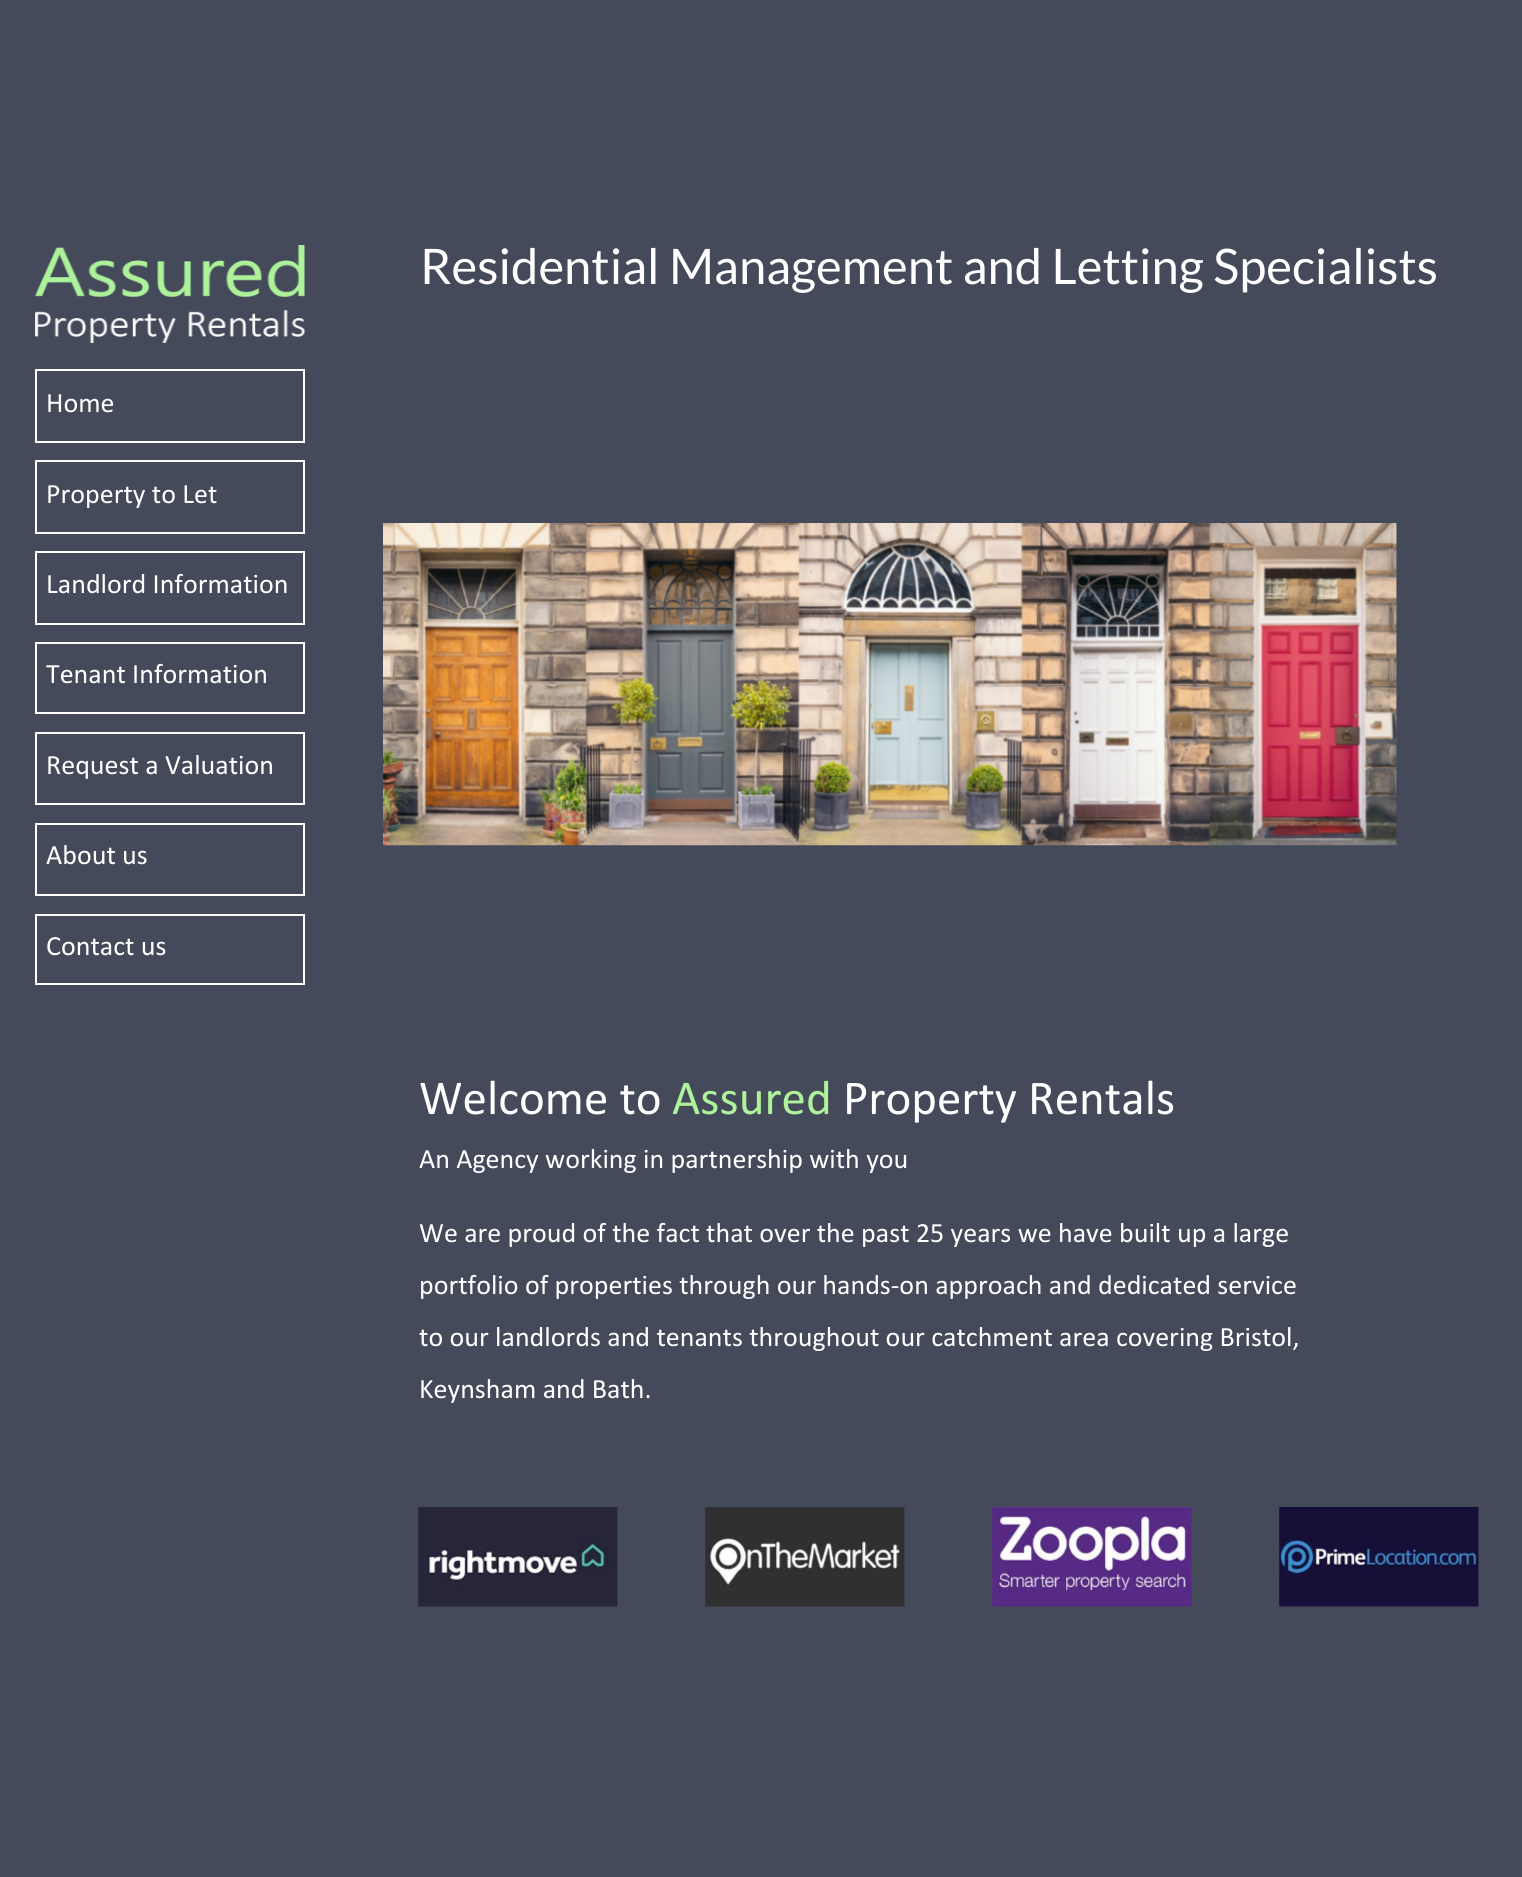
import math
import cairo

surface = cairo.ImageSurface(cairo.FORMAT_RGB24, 1522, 1877)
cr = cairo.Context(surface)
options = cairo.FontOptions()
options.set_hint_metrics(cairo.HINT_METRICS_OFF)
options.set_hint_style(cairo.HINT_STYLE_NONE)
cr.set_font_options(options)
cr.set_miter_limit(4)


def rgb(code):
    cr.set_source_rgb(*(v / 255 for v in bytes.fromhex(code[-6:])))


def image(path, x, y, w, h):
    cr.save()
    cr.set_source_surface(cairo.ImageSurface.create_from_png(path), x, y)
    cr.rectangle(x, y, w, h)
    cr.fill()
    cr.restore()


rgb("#444a5a")
cr.paint()
image("img/1.png", 35, 245, 270, 98)
cr.rectangle(36, 370, 268, 72)
rgb("#ffffff")
cr.stroke()
cr.rectangle(36, 461, 268, 72)
cr.stroke()
cr.rectangle(36, 552, 268, 72)
cr.stroke()
cr.rectangle(36, 643, 268, 70)
cr.stroke()
cr.rectangle(36, 733, 268, 71)
cr.stroke()
cr.rectangle(36, 824, 268, 71)
cr.stroke()
cr.rectangle(36, 915, 268, 69)
cr.stroke()
image("img/2.png", 383, 523, 1014, 323)
image("img/3.png", 418, 1507, 200, 100)
image("img/4.png", 705, 1507, 200, 100)
image("img/5.png", 992, 1507, 200, 100)
image("img/6.png", 1279, 1507, 200, 100)
cr.select_font_face("Calibri")
cr.set_font_size(28)
for x, y, s in [
    (46, 412, "Home"),
    (46, 503, "Property to Let"),
    (46, 593, "Landlord Information"),
    (46, 683, "Tenant Information"),
    (46, 774, "Request a Valuation"),
    (46, 864, "About us"),
    (46, 955, "Contact us"),
]:
    cr.move_to(x, y)
    cr.show_text(s)
cr.select_font_face("Lato")
cr.set_font_size(49)
cr.move_to(420, 284)
cr.show_text("Residential Management and Letting Specialists")
cr.select_font_face("Calibri")
cr.move_to(419, 1114)
cr.show_text("Welcome to")
rgb("#aef39b")
cr.move_to(672, 1114)
cr.show_text("Assured")
rgb("#ffffff")
cr.move_to(843, 1114)
cr.show_text("Property Rentals")
cr.set_font_size(28)
for x, y, s in [
    (419, 1168, "An Agency working in partnership with you"),
    (419, 1242, "We are proud of the fact that over the past 25 years we have built up a large"),
    (419, 1294, "portfolio of properties through our hands-on approach and dedicated service"),
    (419, 1346, "to our landlords and tenants throughout our catchment area covering Bristol,"),
    (419, 1398, "Keynsham and Bath."),
]:
    cr.move_to(x, y)
    cr.show_text(s)
surface.write_to_png("page.png")
